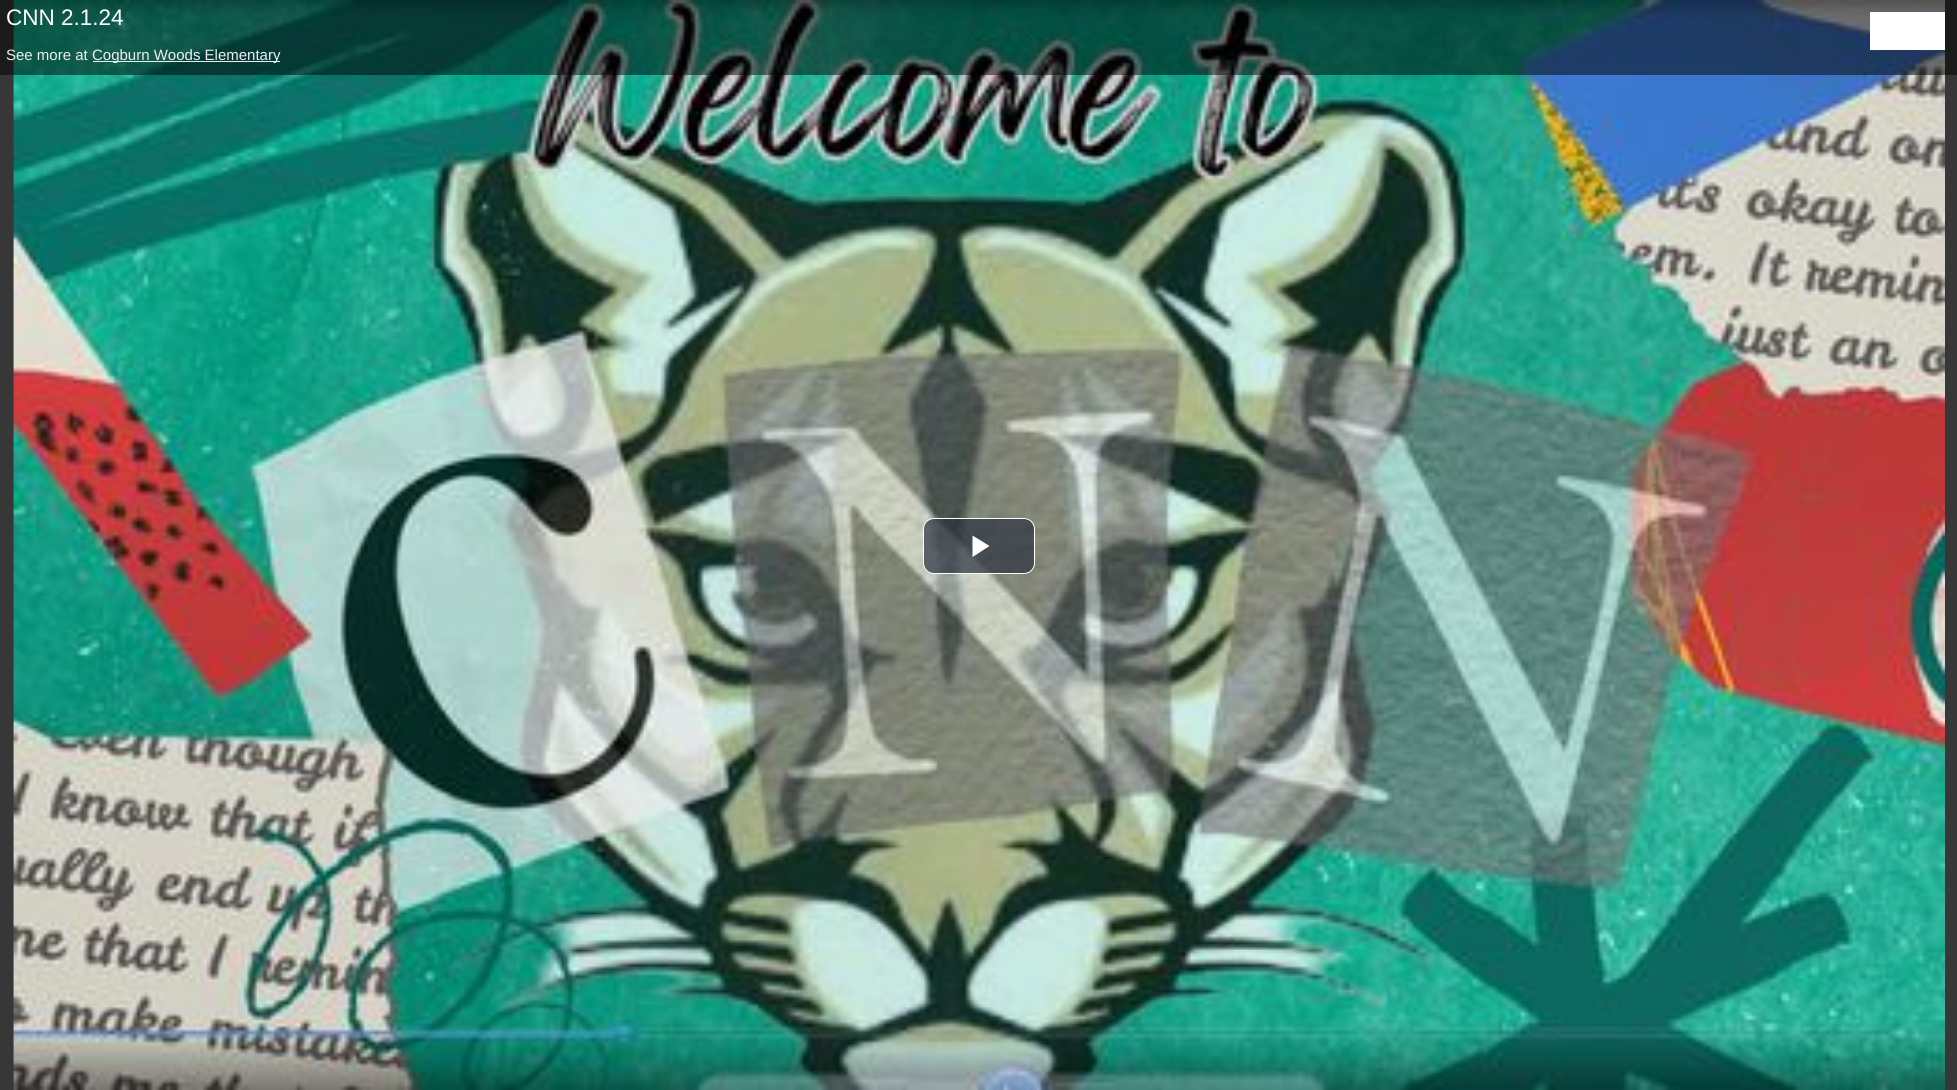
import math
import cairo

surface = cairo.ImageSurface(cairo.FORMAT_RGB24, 1957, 1090)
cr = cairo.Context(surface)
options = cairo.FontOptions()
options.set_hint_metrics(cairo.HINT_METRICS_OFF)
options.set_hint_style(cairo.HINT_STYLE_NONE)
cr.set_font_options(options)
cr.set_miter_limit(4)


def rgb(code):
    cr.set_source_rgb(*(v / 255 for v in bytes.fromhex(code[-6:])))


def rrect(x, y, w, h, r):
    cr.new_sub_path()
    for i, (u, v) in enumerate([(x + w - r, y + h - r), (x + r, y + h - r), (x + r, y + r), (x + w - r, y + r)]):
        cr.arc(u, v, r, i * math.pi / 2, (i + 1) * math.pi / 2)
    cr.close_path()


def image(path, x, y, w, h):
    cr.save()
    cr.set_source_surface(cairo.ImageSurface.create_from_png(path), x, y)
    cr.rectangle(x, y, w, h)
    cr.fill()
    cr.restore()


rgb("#373737")
cr.paint()
image("img/1.png", 13, 0, 1, 1090)
image("img/2.png", 13, 0, 1932, 1090)
cr.set_source_rgba(0.169, 0.2, 0.247, 0.7)
rrect(923.5, 518.5, 111, 55, 10.5)
cr.fill_preserve()
rgb("#ffffff")
cr.set_line_width(1)
cr.stroke()
cr.new_path()
cr.move_to(972.5, 535.5)
cr.line_to(972.5, 557)
cr.line_to(989.5, 546)
cr.close_path()
cr.fill()
cr.set_source_rgba(0, 0, 0, 0.5)
cr.rectangle(0, 0, 1957, 75)
cr.fill()
rgb("#ffffff")
cr.rectangle(1870, 12, 75, 38)
cr.fill()
rgb("#eeeeee")
cr.rectangle(93, 61, 187, 1)
cr.fill()
cr.select_font_face("Liberation Sans")
cr.set_font_size(22.5)
rgb("#ffffff")
cr.move_to(6, 25)
cr.show_text("CNN 2.1.24")
cr.set_font_size(15)
rgb("#eeeeee")
cr.move_to(6, 60)
cr.show_text("See more at")
cr.move_to(92, 60)
cr.show_text("Cogburn Woods Elementary")
surface.write_to_png("page.png")
